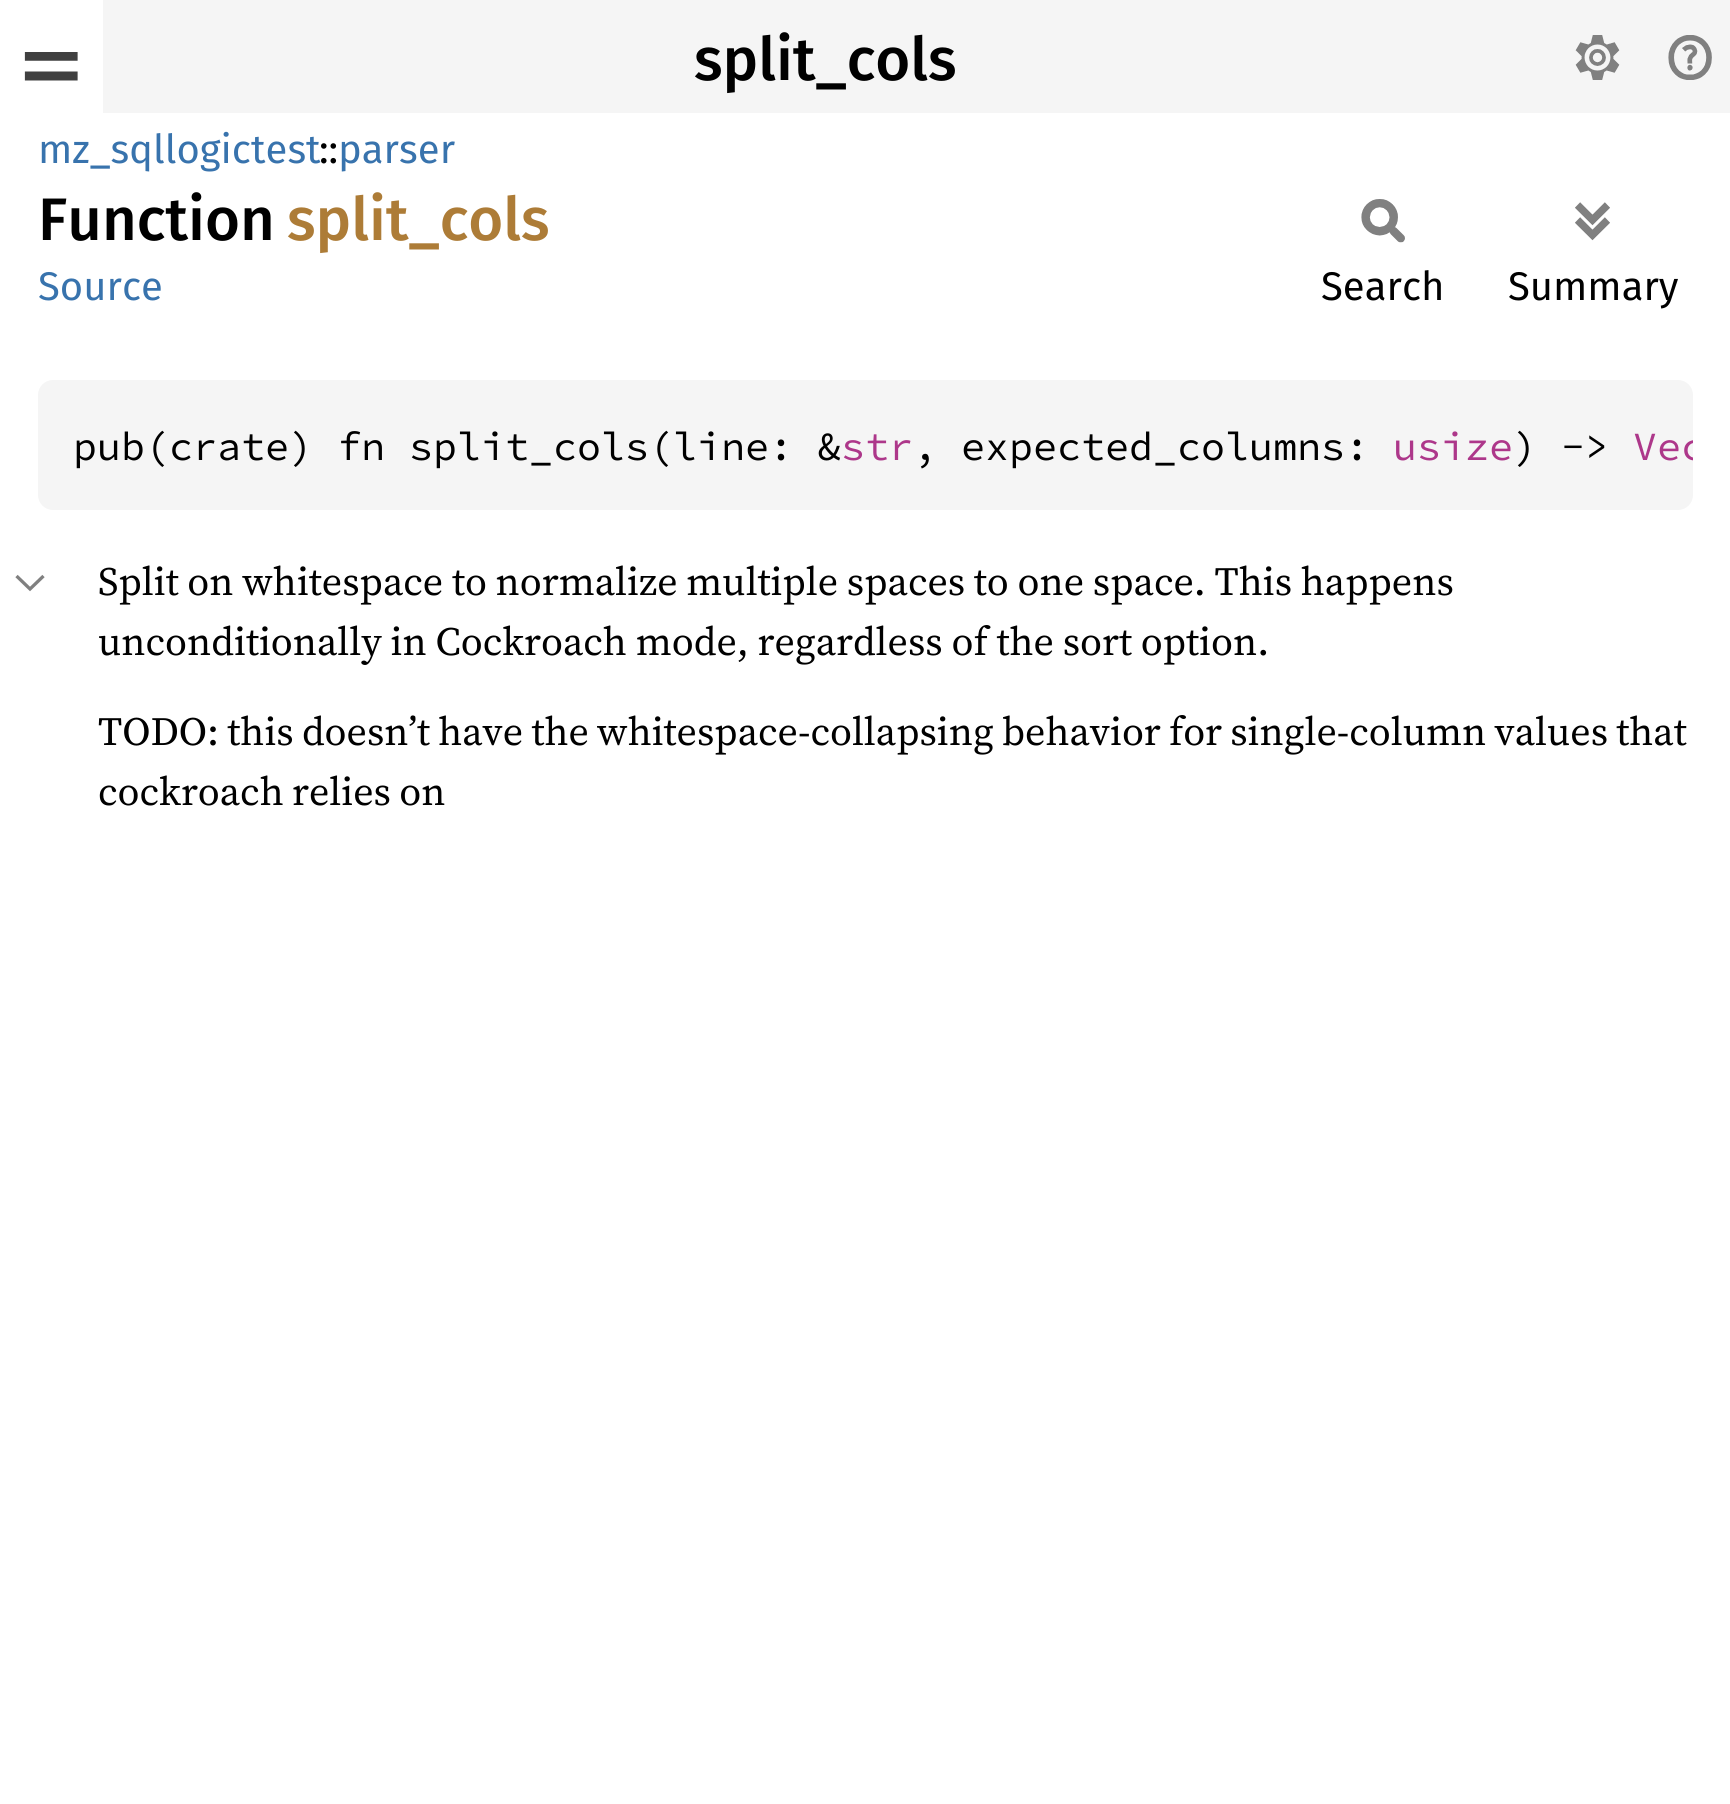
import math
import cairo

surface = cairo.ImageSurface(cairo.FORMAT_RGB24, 1730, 1804)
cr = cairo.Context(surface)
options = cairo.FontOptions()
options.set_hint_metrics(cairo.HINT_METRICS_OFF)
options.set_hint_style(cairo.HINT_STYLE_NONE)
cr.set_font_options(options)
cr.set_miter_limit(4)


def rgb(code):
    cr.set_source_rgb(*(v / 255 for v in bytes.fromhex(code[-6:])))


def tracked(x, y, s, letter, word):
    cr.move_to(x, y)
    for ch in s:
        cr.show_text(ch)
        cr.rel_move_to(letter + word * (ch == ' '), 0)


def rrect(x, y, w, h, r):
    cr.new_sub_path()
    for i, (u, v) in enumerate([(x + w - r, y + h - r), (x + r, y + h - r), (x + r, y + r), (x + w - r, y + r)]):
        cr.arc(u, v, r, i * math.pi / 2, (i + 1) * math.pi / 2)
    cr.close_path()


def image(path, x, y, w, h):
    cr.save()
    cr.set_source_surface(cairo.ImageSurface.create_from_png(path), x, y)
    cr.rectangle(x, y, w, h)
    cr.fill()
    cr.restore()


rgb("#ffffff")
cr.paint()
rgb("#f5f5f5")
cr.rectangle(103, 0, 1627, 113)
cr.fill()
image("img/1.png", 24, 52, 54, 29)
image("img/2.png", 1575, 35, 45, 45)
image("img/3.png", 1668, 35, 44, 45)
image("img/4.png", 1361, 199, 44, 44)
image("img/5.png", 1575, 202, 35, 39)
rrect(38, 380, 1655, 130, 15)
cr.fill()
cr.new_path()
cr.move_to(16.5, 576)
cr.line_to(30, 589)
cr.line_to(43.5, 576)
rgb("#808080")
cr.set_line_width(3.3)
cr.stroke()
cr.select_font_face("Fira Sans Medium")
cr.set_font_size(60)
rgb("#000000")
cr.move_to(694, 80)
cr.show_text("split_cols")
cr.select_font_face("Fira Sans")
cr.set_font_size(40)
rgb("#3873ad")
cr.move_to(38, 163)
cr.show_text("mz_sqllogictest")
rgb("#000000")
cr.move_to(319, 163)
cr.show_text("::")
rgb("#3873ad")
cr.move_to(338, 163)
cr.show_text("parser")
cr.select_font_face("Fira Sans Medium")
cr.set_font_size(60)
rgb("#000000")
cr.move_to(38, 240)
cr.show_text("Function")
rgb("#ad7c37")
cr.move_to(287, 240)
cr.show_text("split_cols")
cr.select_font_face("Fira Sans")
cr.set_font_size(40)
rgb("#3873ad")
cr.move_to(38, 300)
cr.show_text("Source")
rgb("#000000")
cr.move_to(1321, 300)
cr.show_text("Search")
cr.move_to(1508, 300)
cr.show_text("Summary")
cr.select_font_face("Source Code Pro")
cr.move_to(73, 460)
cr.show_text("pub(crate) fn split_cols(line: &")
rgb("#ad378a")
cr.move_to(841, 460)
cr.show_text("str")
rgb("#000000")
cr.move_to(913, 460)
cr.show_text(", expected_columns:")
rgb("#ad378a")
cr.move_to(1393, 460)
cr.show_text("usize")
rgb("#000000")
cr.move_to(1513, 460)
cr.show_text(") ->")
cr.save()
rrect(38, 380, 1655, 130, 15)
cr.clip()
rgb("#ad378a")
cr.move_to(1633, 460)
cr.show_text("Vec")
cr.restore()
cr.select_font_face("Source Serif 4")
tracked(98, 595, "Split on whitespace to normalize multiple spaces to one space. This happens", 0, -0.6)
tracked(98, 655, "unconditionally in Cockroach mode, regardless of the sort option.", 0, -0.5)
tracked(98, 745, "TODO: this doesn’t have the whitespace-collapsing behavior for single-column values that", 0, -1.1)
tracked(98, 805, "cockroach relies on", 0, -1)
surface.write_to_png("page.png")
